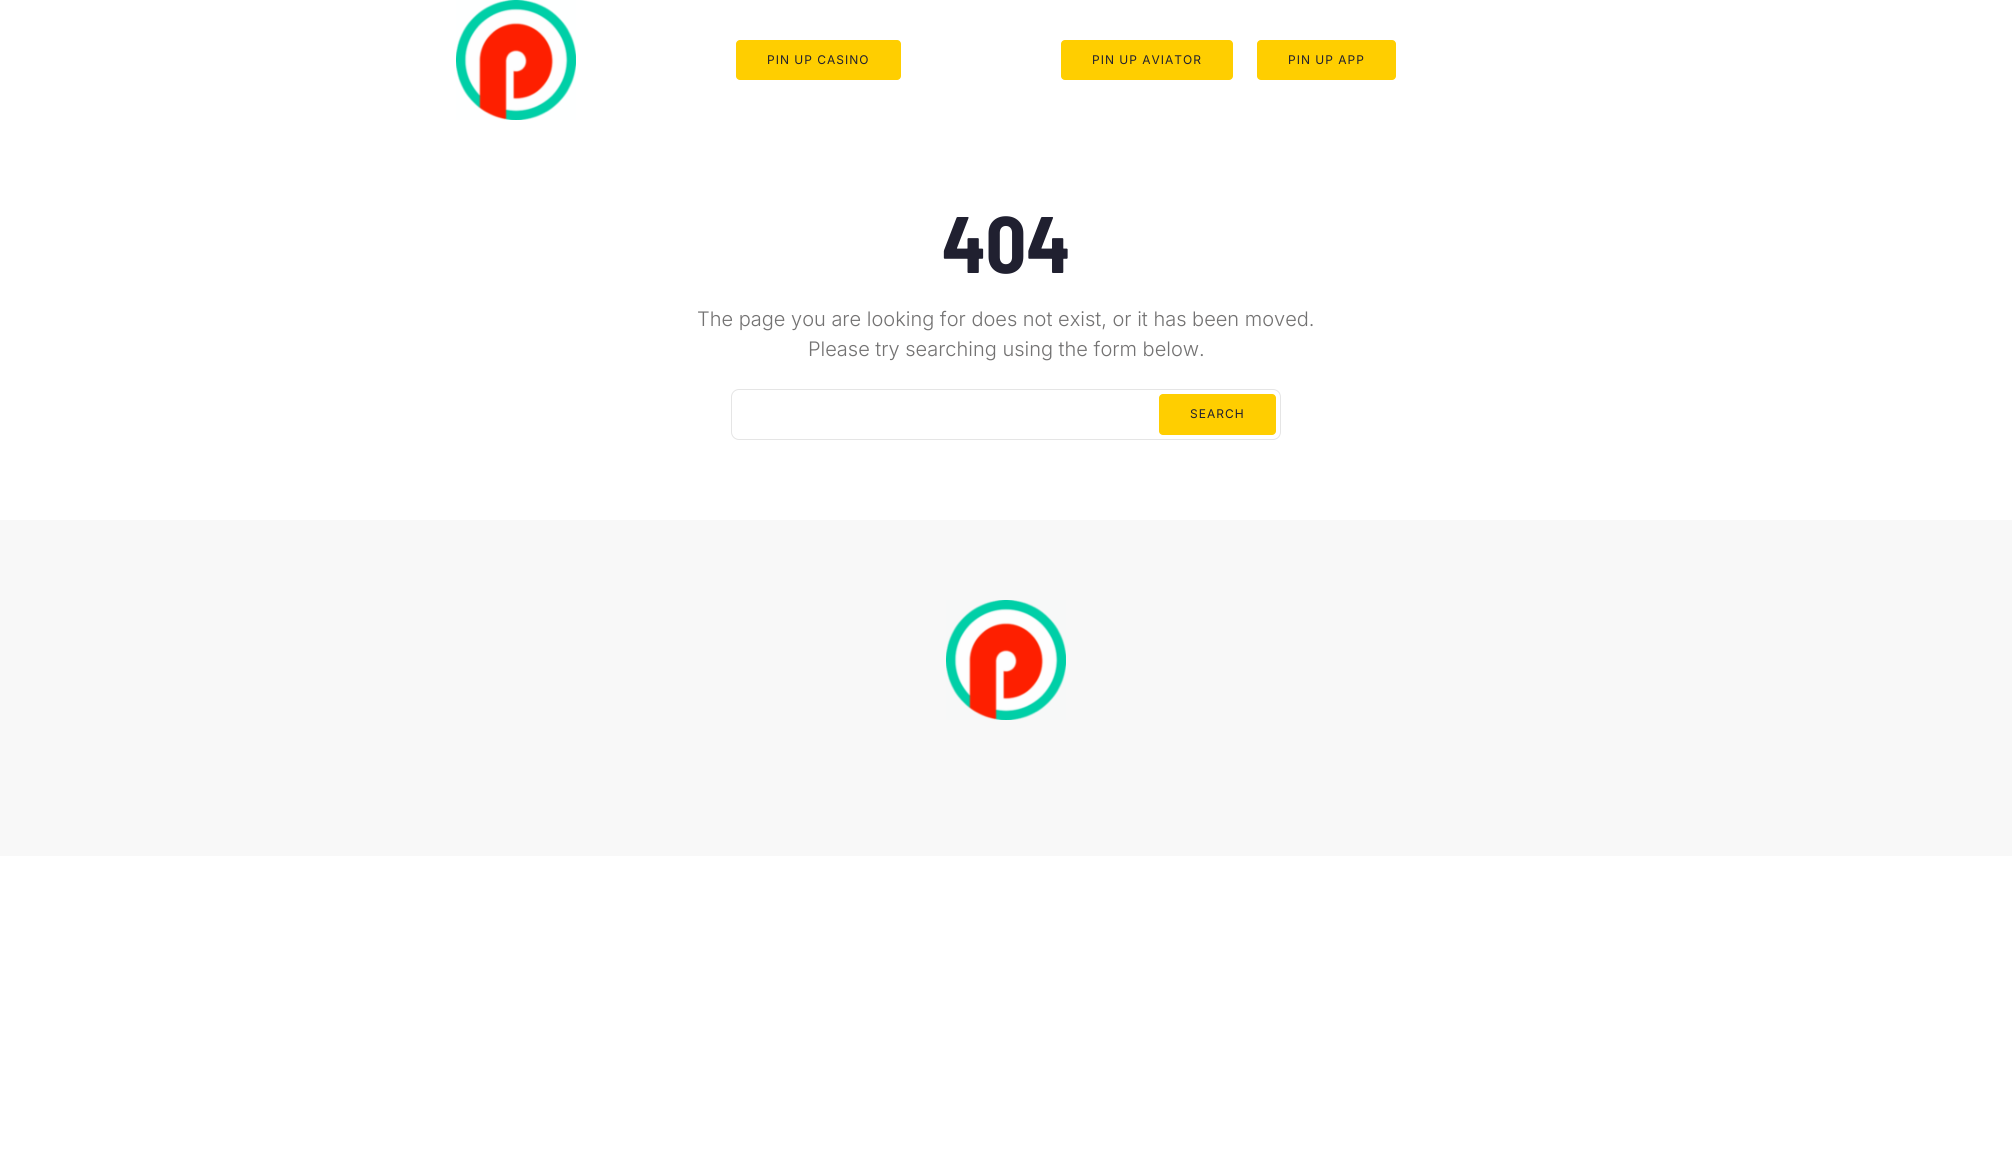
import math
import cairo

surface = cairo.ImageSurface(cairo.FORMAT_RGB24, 2012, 1166)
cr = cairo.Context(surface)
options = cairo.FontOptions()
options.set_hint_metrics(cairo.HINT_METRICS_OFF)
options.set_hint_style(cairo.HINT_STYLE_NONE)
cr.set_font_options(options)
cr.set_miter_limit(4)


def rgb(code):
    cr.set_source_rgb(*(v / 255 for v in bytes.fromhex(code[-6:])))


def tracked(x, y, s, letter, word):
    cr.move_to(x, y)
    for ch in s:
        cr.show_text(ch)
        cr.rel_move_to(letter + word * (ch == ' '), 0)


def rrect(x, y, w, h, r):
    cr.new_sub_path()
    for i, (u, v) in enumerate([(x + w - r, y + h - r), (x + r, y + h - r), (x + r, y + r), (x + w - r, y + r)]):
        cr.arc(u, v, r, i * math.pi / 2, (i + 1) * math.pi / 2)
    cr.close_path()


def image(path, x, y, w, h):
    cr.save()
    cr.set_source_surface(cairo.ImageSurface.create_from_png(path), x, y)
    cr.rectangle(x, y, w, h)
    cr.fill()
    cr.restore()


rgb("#ffffff")
cr.paint()
image("img/1.png", 456, 0, 120, 120)
rgb("#ffce00")
rrect(736, 40, 165, 40, 4)
cr.fill()
rrect(1061, 40, 172, 40, 4)
cr.fill()
rrect(1257, 40, 139, 40, 4)
cr.fill()
rrect(731.5, 389.5, 549, 50, 7.5)
rgb("#e5e5e5")
cr.set_line_width(1)
cr.stroke()
rgb("#ffce00")
rrect(1159, 394, 117, 41, 4)
cr.fill()
rgb("#f8f8f8")
cr.rectangle(0, 520, 2012, 336)
cr.fill()
image("img/2.png", 946, 600, 120, 120)
cr.select_font_face("Inter")
cr.set_font_size(12)
rgb("#202030")
for x, y, s in [
    (767, 64, "PIN UP CASINO"),
    (1092, 64, "PIN UP AVIATOR"),
    (1288, 64, "PIN UP APP"),
]:
    tracked(x, y, s, 1, 0)
cr.select_font_face("Barlow Semi Condensed", cairo.FONT_SLANT_NORMAL, cairo.FONT_WEIGHT_BOLD)
cr.set_font_size(80)
cr.move_to(942, 273)
cr.show_text("404")
cr.select_font_face("Inter Light")
cr.set_font_size(20)
rgb("#737272")
cr.move_to(697, 326)
cr.show_text("The page you are looking for does not exist, or it has been moved.")
cr.move_to(808, 356)
cr.show_text("Please try searching using the form below.")
cr.select_font_face("Inter")
cr.set_font_size(12)
rgb("#202030")
tracked(1190, 418, "SEARCH", 1, 0)
surface.write_to_png("page.png")
